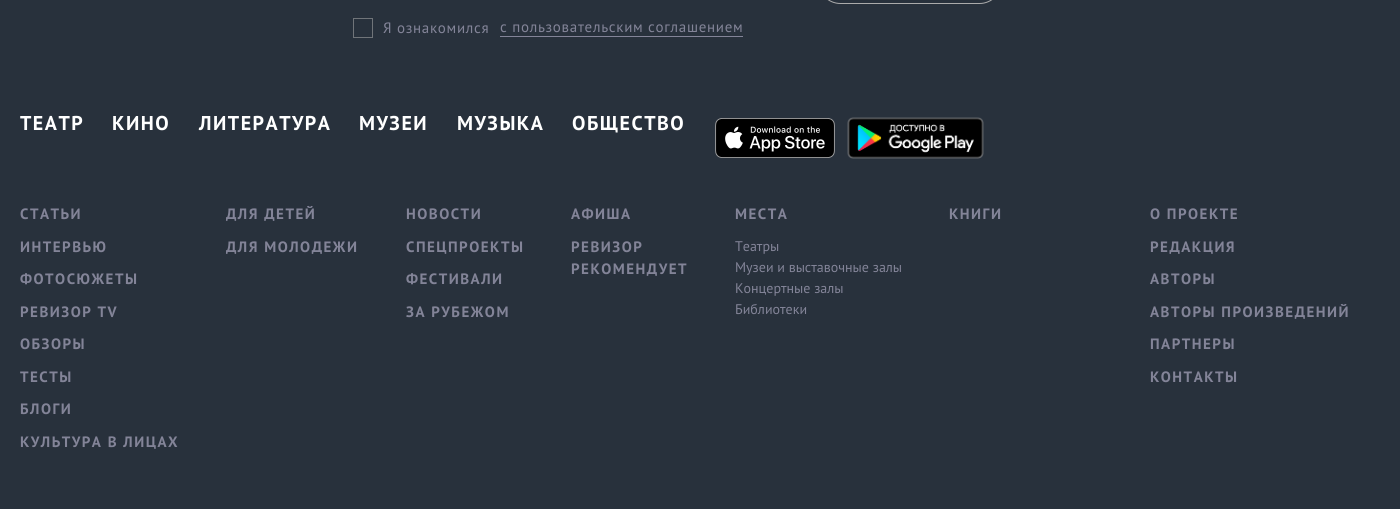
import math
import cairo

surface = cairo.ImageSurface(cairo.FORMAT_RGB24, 1400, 509)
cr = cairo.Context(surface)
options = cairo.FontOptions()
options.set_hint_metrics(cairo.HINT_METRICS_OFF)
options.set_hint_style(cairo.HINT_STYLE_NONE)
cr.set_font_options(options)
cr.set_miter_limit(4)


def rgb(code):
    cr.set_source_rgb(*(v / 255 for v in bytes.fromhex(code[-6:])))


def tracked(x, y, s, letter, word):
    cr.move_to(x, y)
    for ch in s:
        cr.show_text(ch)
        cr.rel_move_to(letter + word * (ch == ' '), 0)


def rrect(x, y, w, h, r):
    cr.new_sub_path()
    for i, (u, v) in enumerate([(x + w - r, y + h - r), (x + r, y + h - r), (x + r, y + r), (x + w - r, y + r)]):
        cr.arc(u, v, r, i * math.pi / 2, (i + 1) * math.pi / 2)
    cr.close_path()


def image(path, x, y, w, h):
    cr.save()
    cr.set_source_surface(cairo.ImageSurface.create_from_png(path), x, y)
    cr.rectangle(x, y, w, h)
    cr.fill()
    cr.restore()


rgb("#28313c")
cr.paint()
rrect(818.5, -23.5, 183, 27, 22)
rgb("#ababab")
cr.set_line_width(1)
cr.stroke()
cr.rectangle(353.5, 18.5, 19, 19)
rgb("#707479")
cr.stroke()
rgb("#838498")
cr.rectangle(500, 36, 243, 1)
cr.fill()
image("img/1.png", 715, 118, 120, 40)
image("img/2.png", 847, 117, 137, 42)
cr.select_font_face("PT Sans")
cr.set_font_size(15)
tracked(383, 33, "Я ознакомился", 0.7, 0)
tracked(500, 32, "с пользовательским соглашением", 0.7, 0)
cr.select_font_face("PT Sans", cairo.FONT_SLANT_NORMAL, cairo.FONT_WEIGHT_BOLD)
cr.set_font_size(20)
rgb("#ffffff")
for x, y, s in [
    (20, 130, "ТЕАТР"),
    (112, 130, "КИНО"),
    (199, 130, "ЛИТЕРАТУРА"),
    (359, 130, "МУЗЕИ"),
    (457, 130, "МУЗЫКА"),
    (572, 130, "ОБЩЕСТВО"),
]:
    tracked(x, y, s, 1.5, 0)
cr.set_font_size(15)
rgb("#838498")
for x, y, s in [
    (20, 219, "СТАТЬИ"),
    (20, 252, "ИНТЕРВЬЮ"),
    (20, 284, "ФОТОСЮЖЕТЫ"),
    (20, 317, "РЕВИЗОР TV"),
    (20, 349, "ОБЗОРЫ"),
    (20, 382, "ТЕСТЫ"),
    (20, 414, "БЛОГИ"),
    (20, 447, "КУЛЬТУРА В ЛИЦАХ"),
    (226, 219, "ДЛЯ ДЕТЕЙ"),
    (226, 252, "ДЛЯ МОЛОДЕЖИ"),
    (406, 219, "НОВОСТИ"),
    (406, 252, "СПЕЦПРОЕКТЫ"),
    (406, 284, "ФЕСТИВАЛИ"),
    (406, 317, "ЗА РУБЕЖОМ"),
    (571, 219, "АФИША"),
    (571, 252, "РЕВИЗОР"),
    (571, 274, "РЕКОМЕНДУЕТ"),
    (735, 219, "МЕСТА"),
]:
    tracked(x, y, s, 1.5, 0)
cr.select_font_face("PT Sans")
cr.set_font_size(14)
for x, y, s in [
    (735, 251, "Театры"),
    (735, 272, "Музеи и выставочные залы"),
    (735, 293, "Концертные залы"),
    (735, 314, "Библиотеки"),
]:
    cr.move_to(x, y)
    cr.show_text(s)
cr.select_font_face("PT Sans", cairo.FONT_SLANT_NORMAL, cairo.FONT_WEIGHT_BOLD)
cr.set_font_size(15)
for x, y, s in [
    (949, 219, "КНИГИ"),
    (1150, 219, "О ПРОЕКТЕ"),
    (1150, 252, "РЕДАКЦИЯ"),
    (1150, 284, "АВТОРЫ"),
    (1150, 317, "АВТОРЫ ПРОИЗВЕДЕНИЙ"),
    (1150, 349, "ПАРТНЕРЫ"),
    (1150, 382, "КОНТАКТЫ"),
]:
    tracked(x, y, s, 1.5, 0)
surface.write_to_png("page.png")
